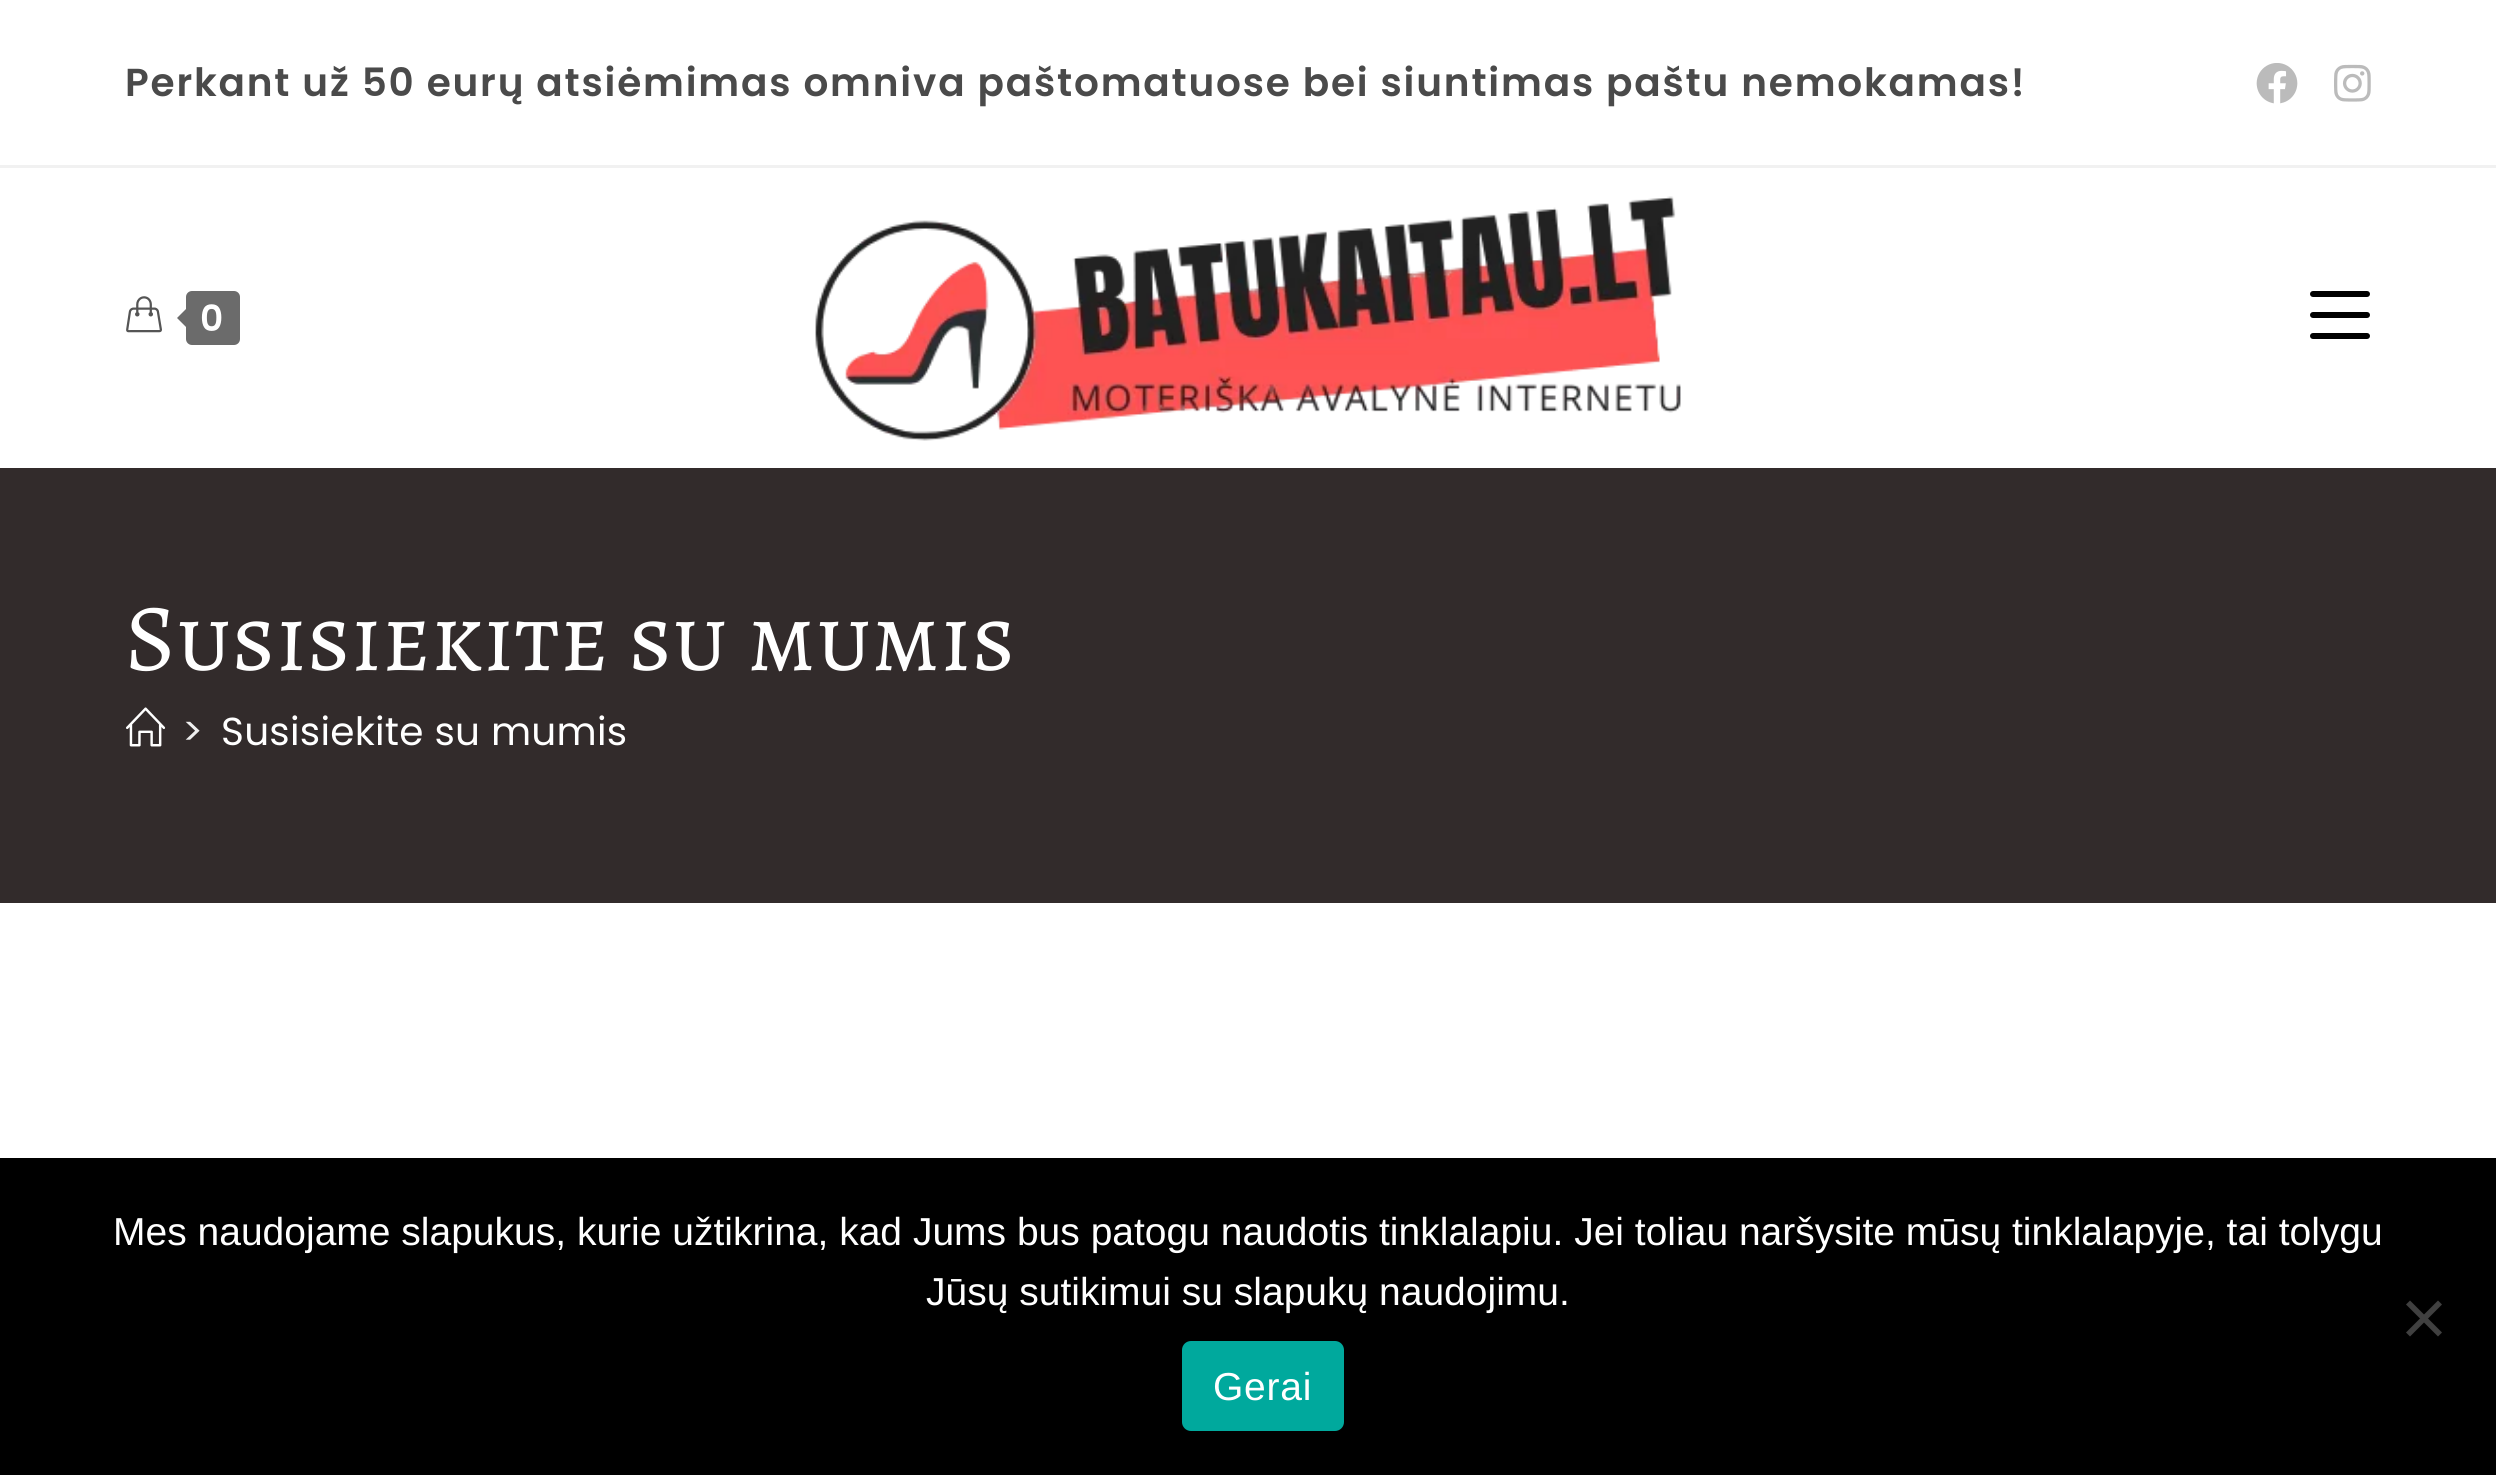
import math
import cairo

surface = cairo.ImageSurface(cairo.FORMAT_RGB24, 2496, 1475)
cr = cairo.Context(surface)
options = cairo.FontOptions()
options.set_hint_metrics(cairo.HINT_METRICS_OFF)
options.set_hint_style(cairo.HINT_STYLE_NONE)
cr.set_font_options(options)
cr.set_miter_limit(4)


def rgb(code):
    cr.set_source_rgb(*(v / 255 for v in bytes.fromhex(code[-6:])))


def tracked(x, y, s, letter, word):
    cr.move_to(x, y)
    for ch in s:
        cr.show_text(ch)
        cr.rel_move_to(letter + word * (ch == ' '), 0)


def rrect(x, y, w, h, r):
    cr.new_sub_path()
    for i, (u, v) in enumerate([(x + w - r, y + h - r), (x + r, y + h - r), (x + r, y + r), (x + w - r, y + r)]):
        cr.arc(u, v, r, i * math.pi / 2, (i + 1) * math.pi / 2)
    cr.close_path()


def image(path, x, y, w, h):
    cr.save()
    cr.set_source_surface(cairo.ImageSurface.create_from_png(path), x, y)
    cr.rectangle(x, y, w, h)
    cr.fill()
    cr.restore()


rgb("#ffffff")
cr.paint()
rgb("#f1f1f1")
cr.rectangle(0, 165, 2496, 3)
cr.fill()
image("img/1.png", 2256, 63, 42, 41)
image("img/2.png", 2334, 64, 37, 38)
image("img/3.png", 126, 296, 36, 37)
rgb("#6b6b6b")
rrect(186, 291, 54, 54, 6)
cr.fill()
cr.new_path()
cr.move_to(192, 303)
cr.line_to(192, 333)
cr.line_to(177, 318)
cr.close_path()
cr.fill()
image("img/4.png", 815, 196, 866, 245)
rgb("#000000")
rrect(2310, 333, 60, 6, 3)
cr.fill()
rrect(2310, 291, 60, 6, 3)
cr.fill()
rrect(2310, 312, 60, 6, 3)
cr.fill()
rgb("#322b2b")
cr.rectangle(0, 468, 2496, 435)
cr.fill()
image("img/5.png", 126, 707, 40, 40)
rgb("#000000")
cr.rectangle(0, 1158, 2496, 317)
cr.fill()
rgb("#404040")
cr.new_path()
cr.move_to(2438, 1300.5)
cr.line_to(2442, 1304.5)
cr.line_to(2410, 1336.5)
cr.line_to(2406, 1332.5)
cr.close_path()
cr.fill()
cr.new_path()
cr.move_to(2406, 1304.5)
cr.line_to(2410, 1300.5)
cr.line_to(2442, 1332.5)
cr.line_to(2438, 1336.5)
cr.close_path()
cr.fill()
rgb("#00a99d")
rrect(1182, 1341, 162, 90, 9)
cr.fill()
cr.select_font_face("Poppins SemiBold")
cr.set_font_size(39)
rgb("#4a4a4a")
tracked(125, 96, "Perkant už 50 eurų atsiėmimas omniva paštomatuose bei siuntimas paštu nemokamas!", 1.8, 0)
cr.set_font_size(36)
rgb("#ffffff")
tracked(200, 331, "0", 3, 0)
cr.select_font_face("Alegreya SC")
cr.set_font_size(96)
tracked(125, 670, "Susisiekite su mumis", 0.25, 0)
cr.select_font_face("Poppins")
cr.set_font_size(39)
rgb("#efefef")
tracked(182, 745, ">", 0.25, 0)
rgb("#ffffff")
tracked(221, 745, "Susisiekite su mumis", 0.25, 0)
cr.select_font_face("Liberation Sans")
cr.move_to(113, 1245)
cr.show_text("Mes naudojame slapukus, kurie užtikrina, kad Jums bus patogu naudotis tinklalapiu. Jei toliau naršysite mūsų tinklalapyje, tai tolygu")
cr.move_to(926, 1305)
cr.show_text("Jūsų sutikimui su slapukų naudojimu.")
tracked(1213, 1400, "Gerai", 0.75, 0)
surface.write_to_png("page.png")
